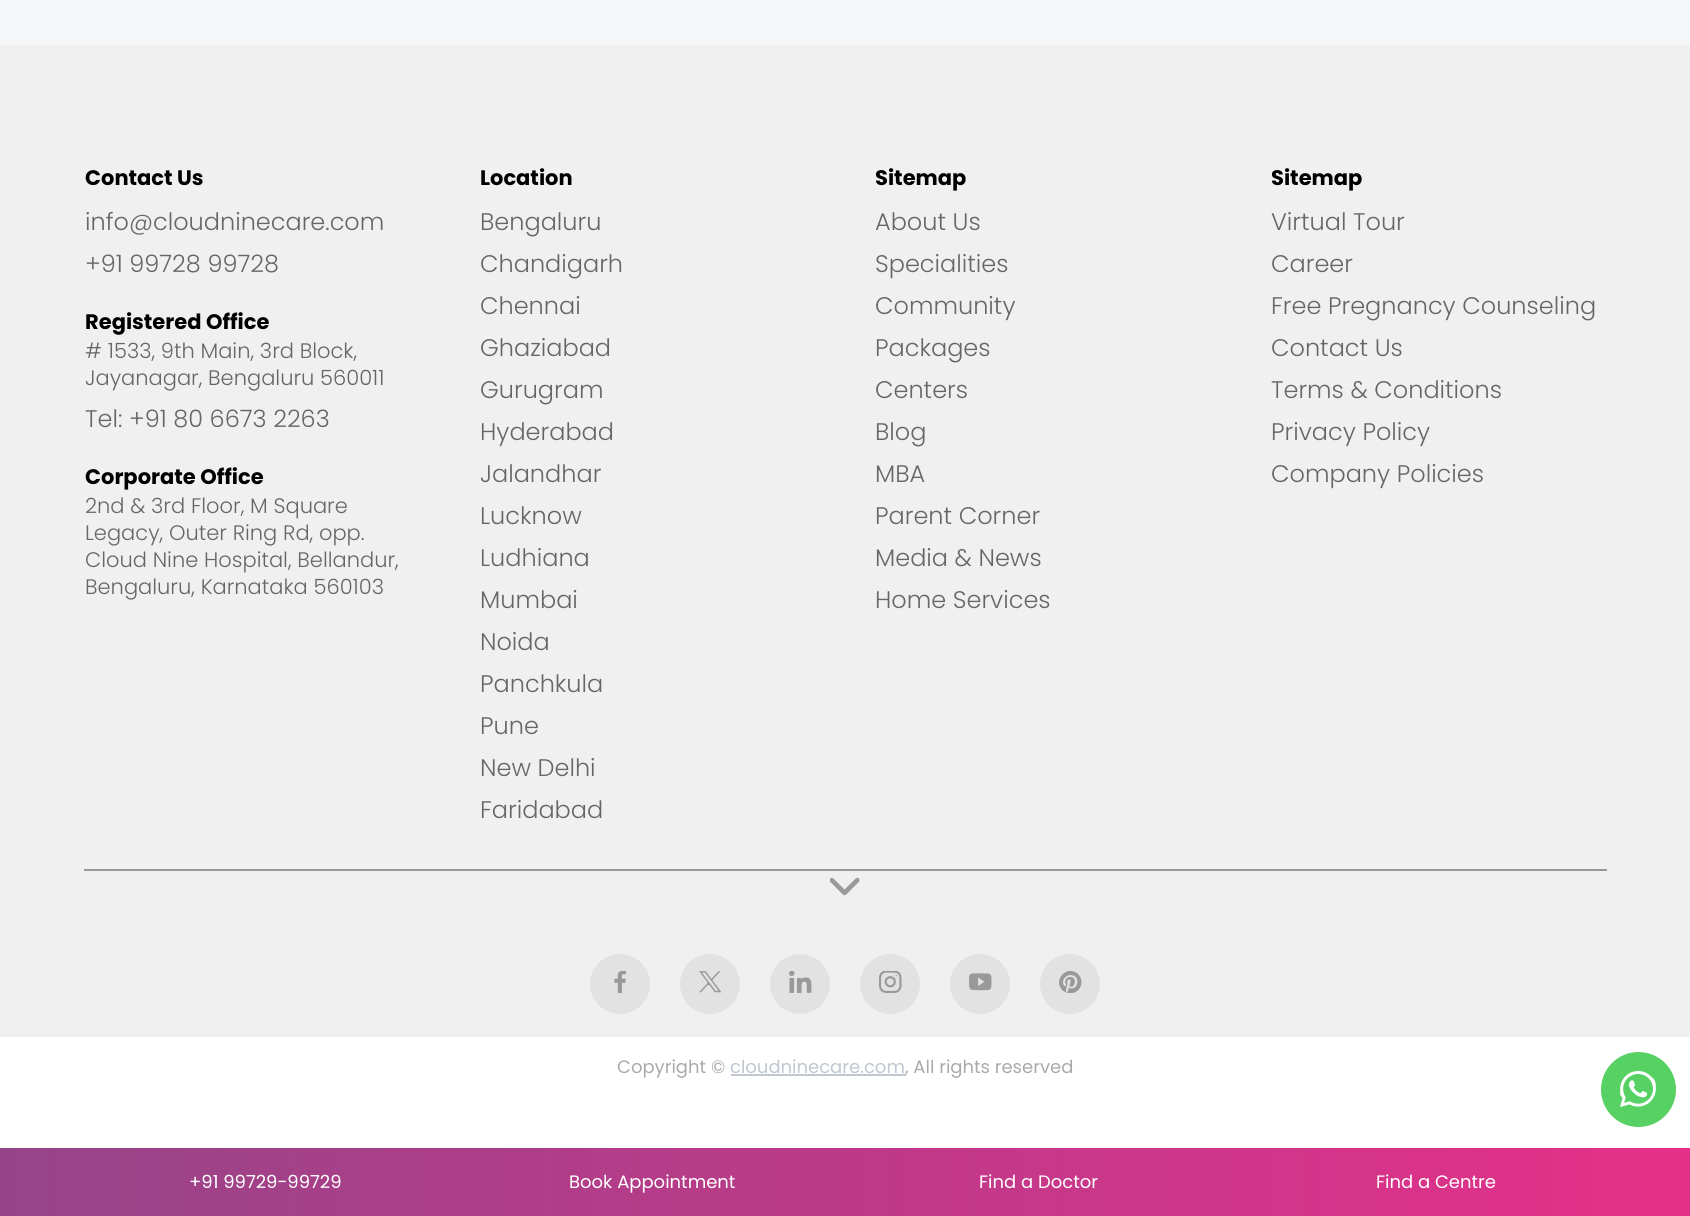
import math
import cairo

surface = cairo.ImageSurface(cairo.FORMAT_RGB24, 1690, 1216)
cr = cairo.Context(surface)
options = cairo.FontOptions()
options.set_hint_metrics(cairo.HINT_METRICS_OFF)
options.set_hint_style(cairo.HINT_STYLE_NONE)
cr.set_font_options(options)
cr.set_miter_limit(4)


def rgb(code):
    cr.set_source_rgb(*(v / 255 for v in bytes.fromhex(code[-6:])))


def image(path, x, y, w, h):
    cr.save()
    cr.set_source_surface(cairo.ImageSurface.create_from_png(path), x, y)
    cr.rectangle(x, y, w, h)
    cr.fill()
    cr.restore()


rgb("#f4f6f8")
cr.paint()
rgb("#f0f0f0")
cr.rectangle(0, 45, 1690, 992)
cr.fill()
rgb("#999999")
cr.rectangle(84, 869, 1523, 2)
cr.fill()
image("img/1.png", 830, 877, 30, 19)
rgb("#e2e2e2")
cr.arc(620, 984, 30, 0, 2 * math.pi)
cr.fill()
image("img/2.png", 614, 971, 12, 22)
cr.arc(710, 984, 30, 0, 2 * math.pi)
cr.fill()
image("img/3.png", 699, 971, 23, 22)
cr.arc(800, 984, 30, 0, 2 * math.pi)
cr.fill()
image("img/4.png", 789, 971, 23, 22)
cr.arc(890, 984, 30, 0, 2 * math.pi)
cr.fill()
image("img/5.png", 879, 971, 23, 22)
cr.arc(980, 984, 30, 0, 2 * math.pi)
cr.fill()
image("img/6.png", 969, 973, 23, 18)
cr.arc(1070, 984, 30, 0, 2 * math.pi)
cr.fill()
image("img/7.png", 1059, 971, 23, 22)
rgb("#ffffff")
cr.rectangle(0, 1037, 1690, 111)
cr.fill()
rgb("#c1c7d0")
cr.rectangle(731, 1074, 174, 2)
cr.fill()
rgb("#57d163")
cr.arc(1638.5, 1089.5, 37.5, 0, 2 * math.pi)
cr.fill()
image("img/8.png", 1620, 1071, 36, 36)
gradient = cairo.LinearGradient(0, 1182, 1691, 1182)
gradient.add_color_stop_rgba(0, 0.588, 0.267, 0.533, 1)
gradient.add_color_stop_rgba(1, 0.898, 0.188, 0.537, 1)
cr.set_source(gradient)
cr.rectangle(0, 1148, 1690, 68)
cr.fill()
cr.select_font_face("Poppins", cairo.FONT_SLANT_NORMAL, cairo.FONT_WEIGHT_BOLD)
cr.set_font_size(21)
rgb("#000000")
cr.move_to(85, 185)
cr.show_text("Contact Us")
cr.select_font_face("Poppins Light")
cr.set_font_size(24)
rgb("#666666")
cr.move_to(85, 230)
cr.show_text("info@cloudninecare.com")
cr.move_to(85, 272)
cr.show_text("+91 99728 99728")
cr.select_font_face("Poppins", cairo.FONT_SLANT_NORMAL, cairo.FONT_WEIGHT_BOLD)
cr.set_font_size(21)
rgb("#000000")
cr.move_to(85, 329)
cr.show_text("Registered Office")
cr.select_font_face("Poppins Light")
rgb("#666666")
cr.move_to(85, 358)
cr.show_text("# 1533, 9th Main, 3rd Block,")
cr.move_to(85, 385)
cr.show_text("Jayanagar, Bengaluru 560011")
cr.set_font_size(24)
cr.move_to(85, 427)
cr.show_text("Tel: +91 80 6673 2263")
cr.select_font_face("Poppins", cairo.FONT_SLANT_NORMAL, cairo.FONT_WEIGHT_BOLD)
cr.set_font_size(21)
rgb("#000000")
cr.move_to(85, 484)
cr.show_text("Corporate Office")
cr.select_font_face("Poppins Light")
rgb("#666666")
for x, y, s in [
    (85, 513, "2nd & 3rd Floor, M Square"),
    (85, 540, "Legacy, Outer Ring Rd, opp."),
    (85, 567, "Cloud Nine Hospital, Bellandur,"),
    (85, 594, "Bengaluru, Karnataka 560103"),
]:
    cr.move_to(x, y)
    cr.show_text(s)
cr.select_font_face("Poppins", cairo.FONT_SLANT_NORMAL, cairo.FONT_WEIGHT_BOLD)
rgb("#000000")
cr.move_to(480, 185)
cr.show_text("Location")
cr.select_font_face("Poppins Light")
cr.set_font_size(24)
rgb("#666666")
for x, y, s in [
    (480, 230, "Bengaluru"),
    (480, 272, "Chandigarh"),
    (480, 314, "Chennai"),
    (480, 356, "Ghaziabad"),
    (480, 398, "Gurugram"),
    (480, 440, "Hyderabad"),
    (480, 482, "Jalandhar"),
    (480, 524, "Lucknow"),
    (480, 566, "Ludhiana"),
    (480, 608, "Mumbai"),
    (480, 650, "Noida"),
    (480, 692, "Panchkula"),
    (480, 734, "Pune"),
    (480, 776, "New Delhi"),
    (480, 818, "Faridabad"),
]:
    cr.move_to(x, y)
    cr.show_text(s)
cr.select_font_face("Poppins", cairo.FONT_SLANT_NORMAL, cairo.FONT_WEIGHT_BOLD)
cr.set_font_size(21)
rgb("#000000")
cr.move_to(875, 185)
cr.show_text("Sitemap")
cr.select_font_face("Poppins Light")
cr.set_font_size(24)
rgb("#666666")
for x, y, s in [
    (875, 230, "About Us"),
    (875, 272, "Specialities"),
    (875, 314, "Community"),
    (875, 356, "Packages"),
    (875, 398, "Centers"),
    (875, 440, "Blog"),
    (875, 482, "MBA"),
    (875, 524, "Parent Corner"),
    (875, 566, "Media & News"),
    (875, 608, "Home Services"),
]:
    cr.move_to(x, y)
    cr.show_text(s)
cr.select_font_face("Poppins", cairo.FONT_SLANT_NORMAL, cairo.FONT_WEIGHT_BOLD)
cr.set_font_size(21)
rgb("#000000")
cr.move_to(1271, 185)
cr.show_text("Sitemap")
cr.select_font_face("Poppins Light")
cr.set_font_size(24)
rgb("#666666")
for x, y, s in [
    (1271, 230, "Virtual Tour"),
    (1271, 272, "Career"),
    (1271, 314, "Free Pregnancy Counseling"),
    (1271, 356, "Contact Us"),
    (1271, 398, "Terms & Conditions"),
    (1271, 440, "Privacy Policy"),
    (1271, 482, "Company Policies"),
]:
    cr.move_to(x, y)
    cr.show_text(s)
cr.select_font_face("Poppins")
cr.set_font_size(18)
rgb("#aaaaaa")
cr.move_to(617, 1073)
cr.show_text("Copyright ©")
rgb("#c1c7d0")
cr.move_to(730, 1073)
cr.show_text("cloudninecare.com")
rgb("#aaaaaa")
cr.move_to(905, 1073)
cr.show_text(", All rights reserved")
rgb("#ffffff")
for x, y, s in [
    (189, 1188, "+91 99729-99729"),
    (569, 1188, "Book Appointment"),
    (979, 1188, "Find a Doctor"),
    (1376, 1188, "Find a Centre"),
]:
    cr.move_to(x, y)
    cr.show_text(s)
surface.write_to_png("page.png")
